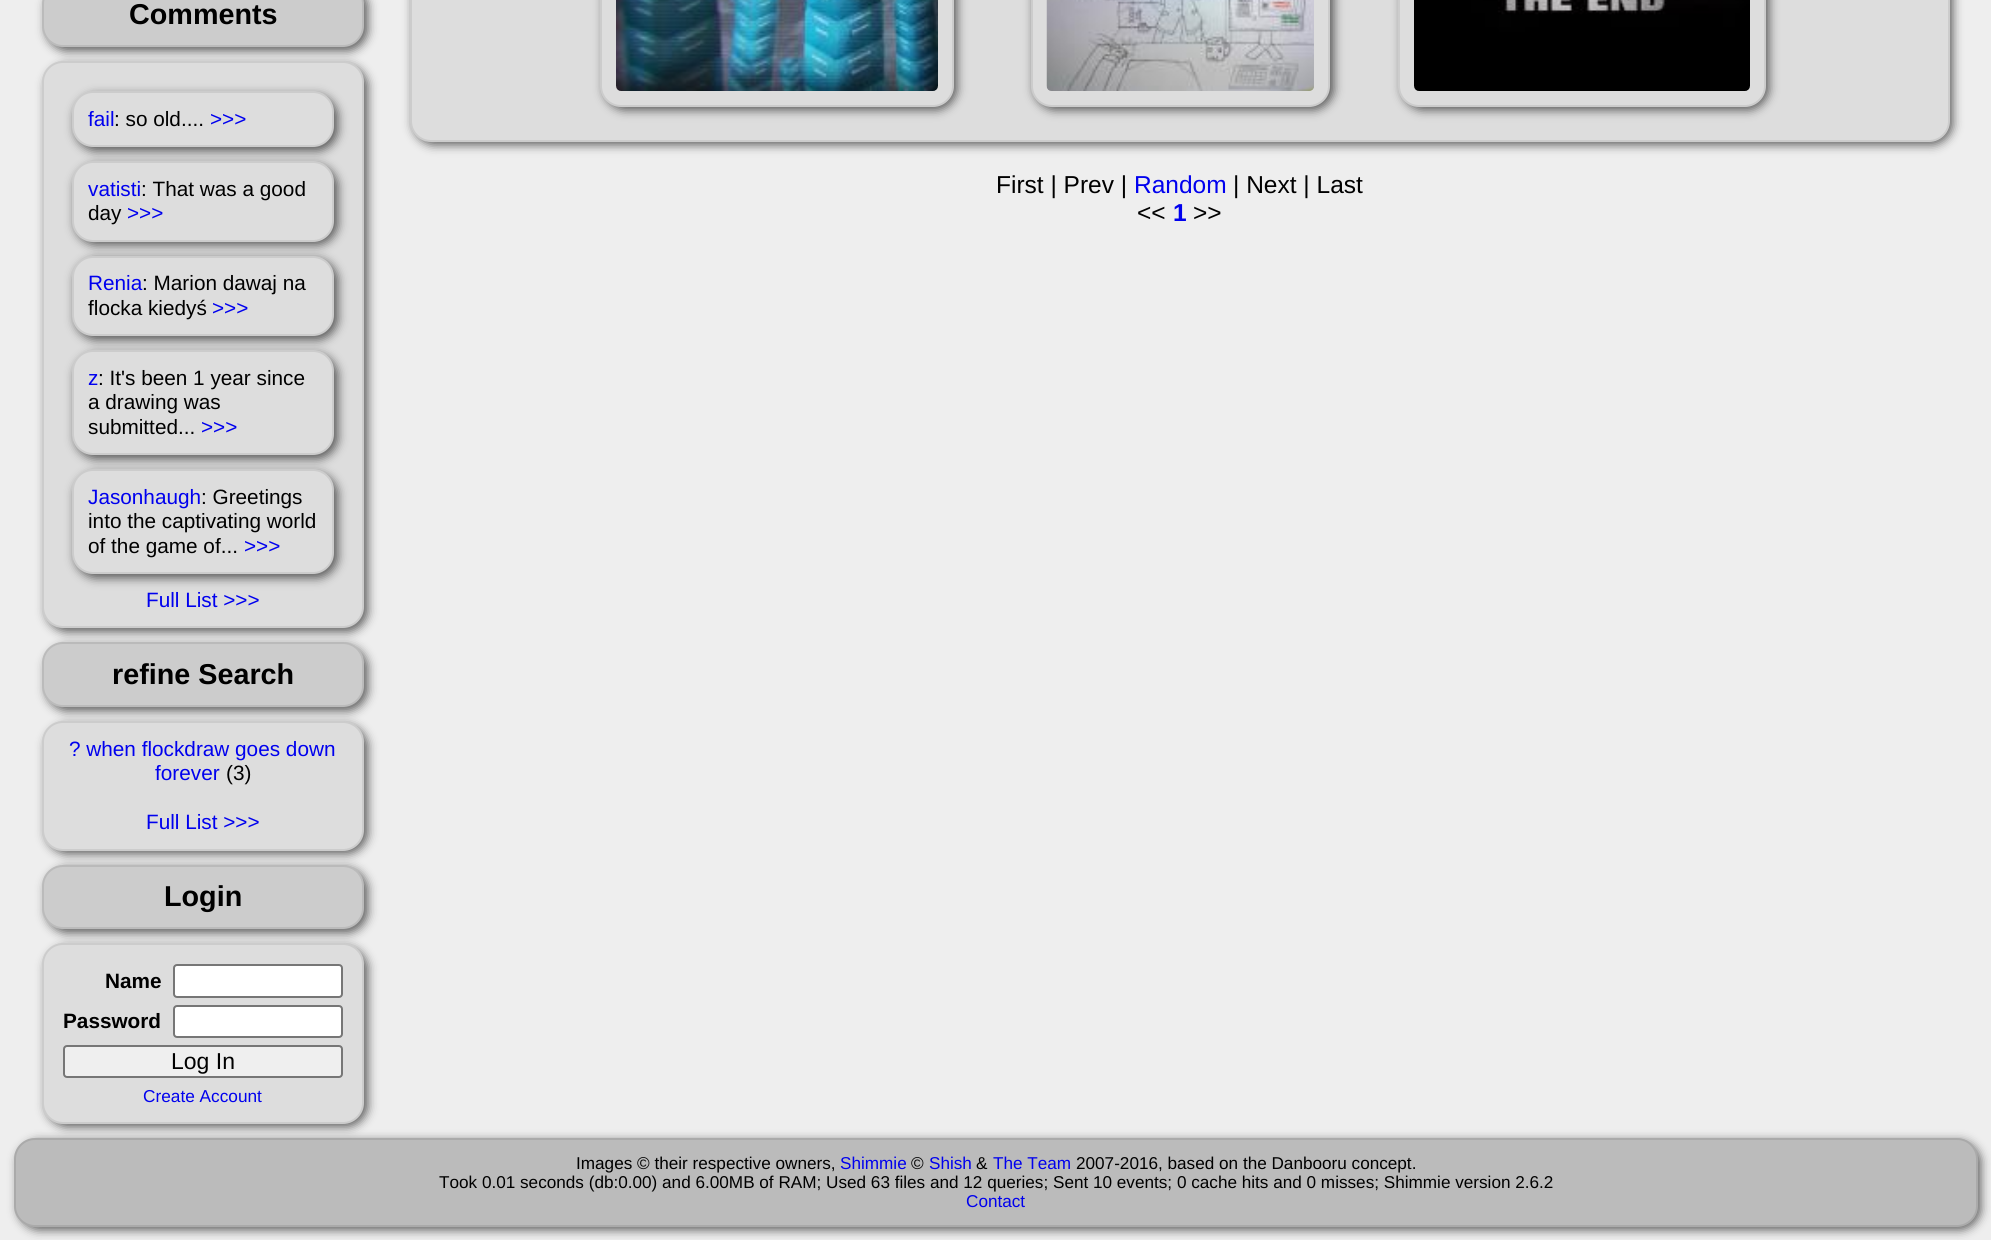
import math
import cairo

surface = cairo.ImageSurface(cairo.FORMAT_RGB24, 1991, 1240)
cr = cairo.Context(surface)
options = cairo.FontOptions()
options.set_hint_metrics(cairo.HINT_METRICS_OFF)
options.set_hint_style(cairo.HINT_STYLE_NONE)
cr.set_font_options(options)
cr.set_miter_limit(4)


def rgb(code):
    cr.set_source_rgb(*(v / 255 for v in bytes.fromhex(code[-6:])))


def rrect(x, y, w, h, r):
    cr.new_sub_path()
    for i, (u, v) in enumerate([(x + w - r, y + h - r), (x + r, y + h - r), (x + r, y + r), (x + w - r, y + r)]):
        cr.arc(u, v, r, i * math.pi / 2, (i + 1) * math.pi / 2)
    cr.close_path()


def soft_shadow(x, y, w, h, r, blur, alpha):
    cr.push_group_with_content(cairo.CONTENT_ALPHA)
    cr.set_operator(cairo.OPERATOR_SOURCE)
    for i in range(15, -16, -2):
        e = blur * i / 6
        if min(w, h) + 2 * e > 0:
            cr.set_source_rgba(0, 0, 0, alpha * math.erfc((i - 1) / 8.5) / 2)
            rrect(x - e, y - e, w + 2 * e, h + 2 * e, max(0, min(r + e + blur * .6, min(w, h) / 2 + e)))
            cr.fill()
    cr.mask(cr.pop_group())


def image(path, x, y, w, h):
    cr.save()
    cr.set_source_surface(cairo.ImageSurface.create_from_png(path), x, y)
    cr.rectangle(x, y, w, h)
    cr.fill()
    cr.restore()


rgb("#eeeeee")
cr.paint()
rgb("#000000")
soft_shadow(46, -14, 322, 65, 21, 5, 0.6)
rgb("#cccccc")
rrect(43, -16, 320, 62, 20)
cr.fill_preserve()
rgb("#bbbbbb")
cr.stroke()
rgb("#000000")
soft_shadow(46, 646, 322, 65, 21, 5, 0.6)
rgb("#cccccc")
rrect(43, 643, 320, 63, 20)
cr.fill_preserve()
rgb("#bbbbbb")
cr.stroke()
rgb("#000000")
soft_shadow(46, 65, 322, 567, 21, 5, 0.6)
rgb("#dddddd")
rrect(43, 62, 320, 565, 20)
cr.fill_preserve()
rgb("#cccccc")
cr.stroke()
rgb("#000000")
soft_shadow(75, 95, 263, 56, 21, 5, 0.6)
rgb("#dddddd")
rrect(73, 92, 260, 54, 20)
cr.fill_preserve()
rgb("#cccccc")
cr.stroke()
rgb("#000000")
soft_shadow(75, 165, 263, 80, 21, 5, 0.6)
rgb("#dddddd")
rrect(73, 162, 260, 79, 20)
cr.fill_preserve()
rgb("#cccccc")
cr.stroke()
rgb("#000000")
soft_shadow(75, 259, 263, 81, 21, 5, 0.6)
rgb("#dddddd")
rrect(73, 257, 260, 78, 20)
cr.fill_preserve()
rgb("#cccccc")
cr.stroke()
rgb("#000000")
soft_shadow(75, 354, 263, 105, 21, 5, 0.6)
rgb("#dddddd")
rrect(73, 351, 260, 103, 20)
cr.fill_preserve()
rgb("#cccccc")
cr.stroke()
rgb("#000000")
soft_shadow(75, 473, 263, 105, 21, 5, 0.6)
rgb("#dddddd")
rrect(73, 470, 260, 103, 20)
cr.fill_preserve()
rgb("#cccccc")
cr.stroke()
rgb("#000000")
soft_shadow(46, 868, 322, 65, 21, 5, 0.6)
rgb("#cccccc")
rrect(43, 866, 320, 62, 20)
cr.fill_preserve()
rgb("#bbbbbb")
cr.stroke()
rgb("#000000")
soft_shadow(46, 725, 322, 129, 21, 5, 0.6)
rgb("#dddddd")
rrect(43, 722, 320, 128, 20)
cr.fill_preserve()
rgb("#cccccc")
cr.stroke()
rgb("#000000")
soft_shadow(18, 1141, 1963, 89, 21, 5, 0.6)
rgb("#bbbbbb")
rrect(15, 1139, 1962, 87, 20)
cr.fill_preserve()
rgb("#aaaaaa")
cr.stroke()
rgb("#000000")
soft_shadow(46, 947, 322, 180, 21, 5, 0.6)
rgb("#dddddd")
rrect(43, 944, 320, 179, 20)
cr.fill_preserve()
rgb("#cccccc")
cr.stroke()
rgb("#ffffff")
rrect(174, 965, 168, 32, 3)
cr.fill_preserve()
rgb("#767676")
cr.stroke()
rgb("#ffffff")
rrect(174, 1006, 168, 31, 3)
cr.fill_preserve()
rgb("#767676")
cr.stroke()
rgb("#efefef")
rrect(64, 1046, 278, 31, 3)
cr.fill_preserve()
rgb("#767676")
cr.stroke()
rgb("#000000")
soft_shadow(413, -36, 1540, 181, 21, 5, 0.6)
rgb("#dddddd")
rrect(411, -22, 1538, 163, 20)
cr.fill_preserve()
rgb("#cccccc")
cr.stroke()
rgb("#000000")
soft_shadow(604, -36, 353, 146, 21, 5, 0.6)
rgb("#dddddd")
rrect(601, -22, 352, 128, 20)
cr.fill_preserve()
rgb("#cccccc")
cr.stroke()
image("img/1.png", 616, 0, 322, 91)
rgb("#000000")
soft_shadow(1034, -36, 300, 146, 21, 5, 0.6)
rgb("#dddddd")
rrect(1032, -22, 297, 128, 20)
cr.fill_preserve()
rgb("#cccccc")
cr.stroke()
image("img/2.png", 1046, 0, 268, 91)
rgb("#000000")
soft_shadow(1402, -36, 367, 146, 21, 5, 0.6)
rgb("#dddddd")
rrect(1399, -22, 366, 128, 20)
cr.fill_preserve()
rgb("#cccccc")
cr.stroke()
image("img/3.png", 1414, 0, 336, 91)
cr.select_font_face("Liberation Sans", cairo.FONT_SLANT_NORMAL, cairo.FONT_WEIGHT_BOLD)
cr.set_font_size(28.75)
rgb("#000000")
cr.move_to(129, 24)
cr.show_text("Comments")
cr.select_font_face("Liberation Sans")
cr.set_font_size(20.75)
rgb("#0000ee")
cr.move_to(88, 126)
cr.show_text("fail")
rgb("#000000")
cr.move_to(114, 126)
cr.show_text(": so old....")
rgb("#0000ee")
cr.move_to(210, 126)
cr.show_text(">>>")
cr.move_to(88, 196)
cr.show_text("vatisti")
rgb("#000000")
cr.move_to(141, 196)
cr.show_text(": That was a good")
cr.move_to(88, 220)
cr.show_text("day")
rgb("#0000ee")
cr.move_to(127, 220)
cr.show_text(">>>")
cr.move_to(88, 290)
cr.show_text("Renia")
rgb("#000000")
cr.move_to(142, 290)
cr.show_text(": Marion dawaj na")
cr.move_to(88, 315)
cr.show_text("flocka kiedyś")
rgb("#0000ee")
cr.move_to(212, 315)
cr.show_text(">>>")
cr.move_to(88, 385)
cr.show_text("z")
rgb("#000000")
for x, y, s in [
    (98, 385, ": It's been 1 year since"),
    (88, 409, "a drawing was"),
    (88, 434, "submitted..."),
]:
    cr.move_to(x, y)
    cr.show_text(s)
rgb("#0000ee")
cr.move_to(201, 434)
cr.show_text(">>>")
cr.move_to(88, 504)
cr.show_text("Jasonhaugh")
rgb("#000000")
for x, y, s in [
    (201, 504, ": Greetings"),
    (88, 528, "into the captivating world"),
    (88, 553, "of the game of..."),
]:
    cr.move_to(x, y)
    cr.show_text(s)
rgb("#0000ee")
cr.move_to(244, 553)
cr.show_text(">>>")
cr.move_to(146, 607)
cr.show_text("Full List >>>")
cr.select_font_face("Liberation Sans", cairo.FONT_SLANT_NORMAL, cairo.FONT_WEIGHT_BOLD)
cr.set_font_size(28.75)
rgb("#000000")
cr.move_to(112, 684)
cr.show_text("refine Search")
cr.select_font_face("Liberation Sans")
cr.set_font_size(20.75)
rgb("#0000ee")
cr.move_to(69, 756)
cr.show_text("? when flockdraw goes down")
cr.move_to(155, 780)
cr.show_text("forever")
rgb("#000000")
cr.move_to(226, 780)
cr.show_text("(3)")
rgb("#0000ee")
cr.move_to(146, 829)
cr.show_text("Full List >>>")
cr.select_font_face("Liberation Sans", cairo.FONT_SLANT_NORMAL, cairo.FONT_WEIGHT_BOLD)
cr.set_font_size(28.75)
rgb("#000000")
cr.move_to(164, 906)
cr.show_text("Login")
cr.set_font_size(20.75)
cr.move_to(105, 988)
cr.show_text("Name")
cr.move_to(63, 1028)
cr.show_text("Password")
cr.select_font_face("Liberation Sans")
cr.set_font_size(23)
cr.move_to(171, 1069)
cr.show_text("Log In")
cr.set_font_size(17.25)
rgb("#0000ee")
cr.move_to(143, 1102)
cr.show_text("Create Account")
cr.set_font_size(24.5)
rgb("#000000")
cr.move_to(996, 193)
cr.show_text("First | Prev |")
rgb("#0000ee")
cr.move_to(1134, 193)
cr.show_text("Random")
rgb("#000000")
cr.move_to(1233, 193)
cr.show_text("| Next | Last")
cr.move_to(1137, 221)
cr.show_text("<<")
cr.select_font_face("Liberation Sans", cairo.FONT_SLANT_NORMAL, cairo.FONT_WEIGHT_BOLD)
rgb("#0000ee")
cr.move_to(1173, 221)
cr.show_text("1")
cr.select_font_face("Liberation Sans")
rgb("#000000")
cr.move_to(1193, 221)
cr.show_text(">>")
cr.set_font_size(17.15)
cr.move_to(576, 1169)
cr.show_text("Images © their respective owners,")
rgb("#0000ee")
cr.move_to(840, 1169)
cr.show_text("Shimmie")
rgb("#000000")
cr.move_to(911, 1169)
cr.show_text("©")
rgb("#0000ee")
cr.move_to(929, 1169)
cr.show_text("Shish")
rgb("#000000")
cr.move_to(976, 1169)
cr.show_text("&")
rgb("#0000ee")
cr.move_to(993, 1169)
cr.show_text("The Team")
rgb("#000000")
cr.move_to(1076, 1169)
cr.show_text("2007-2016, based on the Danbooru concept.")
cr.move_to(439, 1188)
cr.show_text("Took 0.01 seconds (db:0.00) and 6.00MB of RAM; Used 63 files and 12 queries; Sent 10 events; 0 cache hits and 0 misses; Shimmie version 2.6.2")
rgb("#0000ee")
cr.move_to(966, 1207)
cr.show_text("Contact")
surface.write_to_png("page.png")
